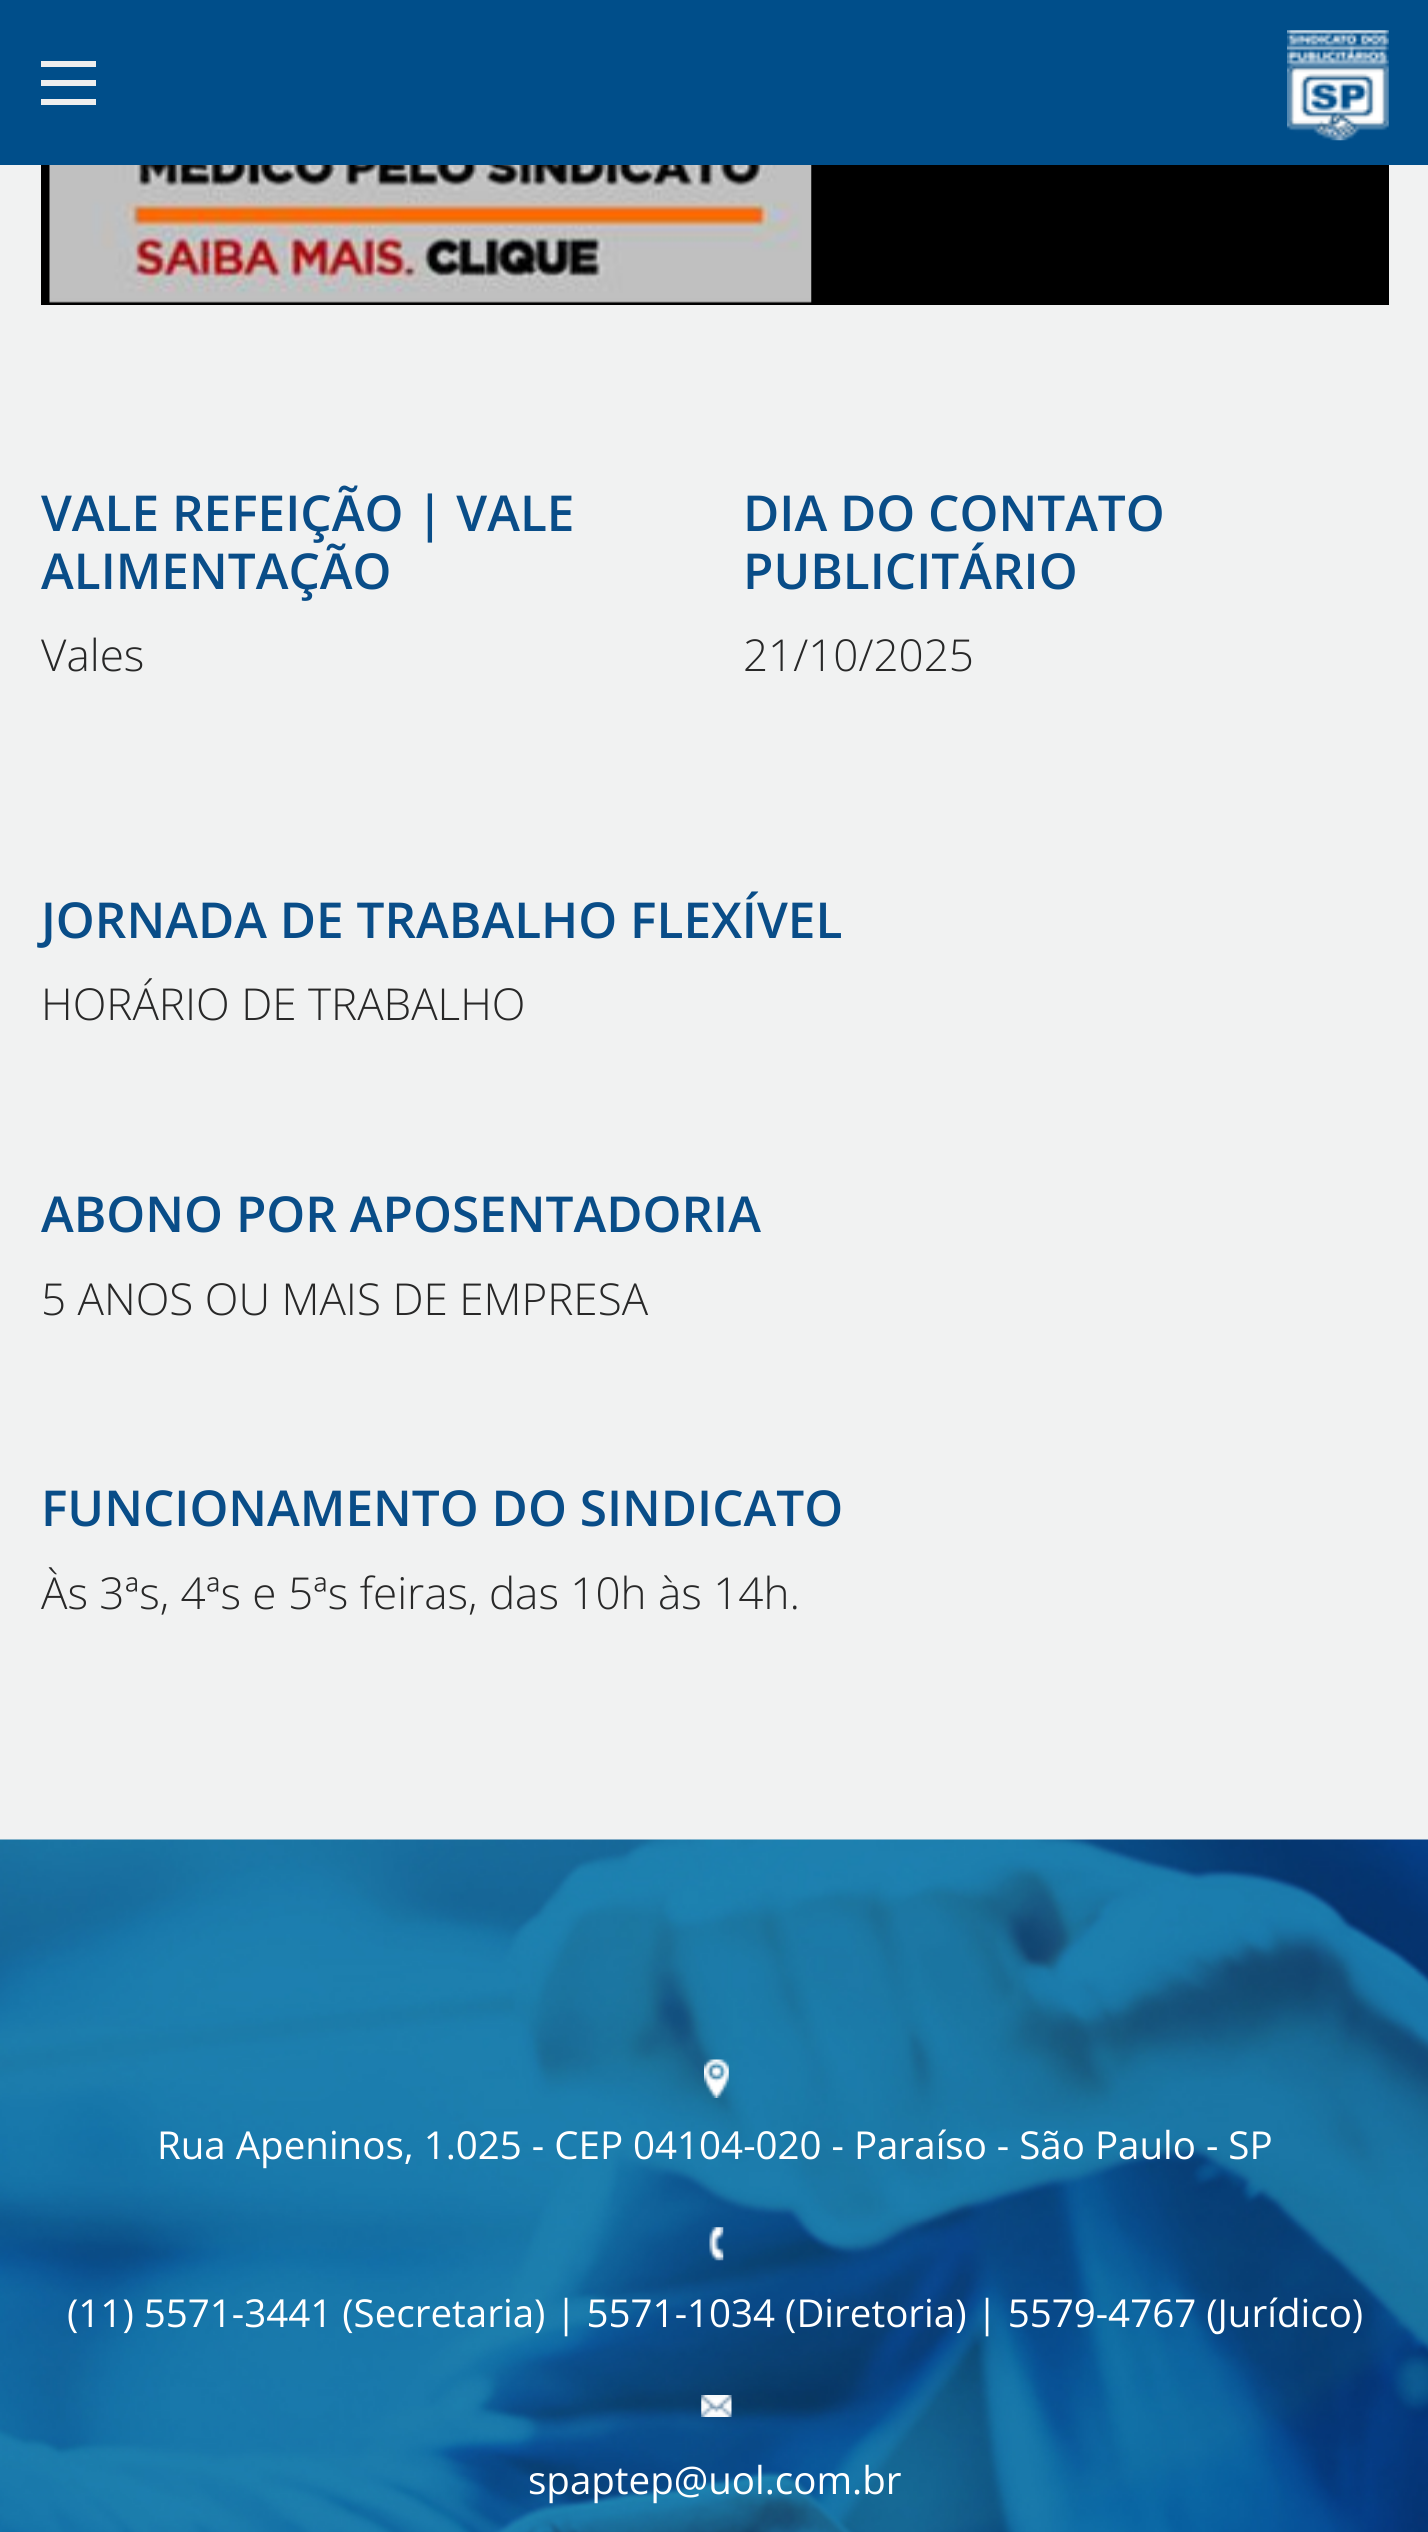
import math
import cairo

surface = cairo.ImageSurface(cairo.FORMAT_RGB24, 1428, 2532)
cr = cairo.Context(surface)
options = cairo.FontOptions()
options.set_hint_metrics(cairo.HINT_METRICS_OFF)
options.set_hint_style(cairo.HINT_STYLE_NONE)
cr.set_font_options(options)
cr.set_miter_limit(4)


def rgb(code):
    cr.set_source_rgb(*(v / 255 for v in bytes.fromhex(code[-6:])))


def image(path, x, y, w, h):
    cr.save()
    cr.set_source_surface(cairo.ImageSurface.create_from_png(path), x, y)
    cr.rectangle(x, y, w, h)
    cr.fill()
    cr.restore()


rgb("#f1f2f2")
cr.paint()
for x, y, w, h, color in [
    (0, 0, 1428, 165, "#004e8a"),
    (41, 99, 55, 6, "#eeeeee"),
    (41, 80, 55, 6, "#eeeeee"),
    (41, 61, 55, 6, "#eeeeee"),
]:
    rgb(color)
    cr.rectangle(x, y, w, h)
    cr.fill()
image("img/1.png", 1287, 30, 102, 111)
rgb("#000000")
cr.rectangle(41, 165, 1348, 140)
cr.fill()
image("img/2.png", 49, 165, 763, 138)
image("img/3.png", 0, 1839, 1428, 693)
image("img/4.png", 704, 2059, 25, 39)
image("img/5.png", 709, 2227, 15, 34)
image("img/6.png", 701, 2395, 31, 22)
cr.select_font_face("Open Sans SemiBold")
cr.set_font_size(49.5)
rgb("#094d88")
cr.move_to(41, 531)
cr.show_text("VALE REFEIÇÃO | VALE")
cr.move_to(41, 589)
cr.show_text("ALIMENTAÇÃO")
cr.select_font_face("Open Sans Light")
cr.set_font_size(44)
rgb("#282828")
cr.move_to(41, 671)
cr.show_text("Vales")
cr.select_font_face("Open Sans SemiBold")
cr.set_font_size(49.5)
rgb("#094d88")
cr.move_to(743, 531)
cr.show_text("DIA DO CONTATO")
cr.move_to(743, 589)
cr.show_text("PUBLICITÁRIO")
cr.select_font_face("Open Sans Light")
cr.set_font_size(44)
rgb("#282828")
cr.move_to(743, 671)
cr.show_text("21/10/2025")
cr.select_font_face("Open Sans SemiBold")
cr.set_font_size(49.5)
rgb("#094d88")
cr.move_to(41, 938)
cr.show_text("JORNADA DE TRABALHO FLEXÍVEL")
cr.select_font_face("Open Sans Light")
cr.set_font_size(44)
rgb("#282828")
cr.move_to(41, 1020)
cr.show_text("HORÁRIO DE TRABALHO")
cr.select_font_face("Open Sans SemiBold")
cr.set_font_size(49.5)
rgb("#094d88")
cr.move_to(41, 1232)
cr.show_text("ABONO POR APOSENTADORIA")
cr.select_font_face("Open Sans Light")
cr.set_font_size(44)
rgb("#282828")
cr.move_to(41, 1315)
cr.show_text("5 ANOS OU MAIS DE EMPRESA")
cr.select_font_face("Open Sans SemiBold")
cr.set_font_size(49.5)
rgb("#094d88")
cr.move_to(41, 1526)
cr.show_text("FUNCIONAMENTO DO SINDICATO")
cr.select_font_face("Open Sans Light")
cr.set_font_size(44)
rgb("#282828")
cr.move_to(41, 1609)
cr.show_text("Às 3ªs, 4ªs e 5ªs feiras, das 10h às 14h.")
cr.select_font_face("Open Sans")
cr.set_font_size(38.5)
rgb("#ffffff")
for x, y, s in [
    (157, 2159, "Rua Apeninos, 1.025 - CEP 04104-020 - Paraíso - São Paulo - SP"),
    (67, 2327, "(11) 5571-3441 (Secretaria) | 5571-1034 (Diretoria) | 5579-4767 (Jurídico)"),
    (528, 2494, "spaptep@uol.com.br"),
]:
    cr.move_to(x, y)
    cr.show_text(s)
surface.write_to_png("page.png")
